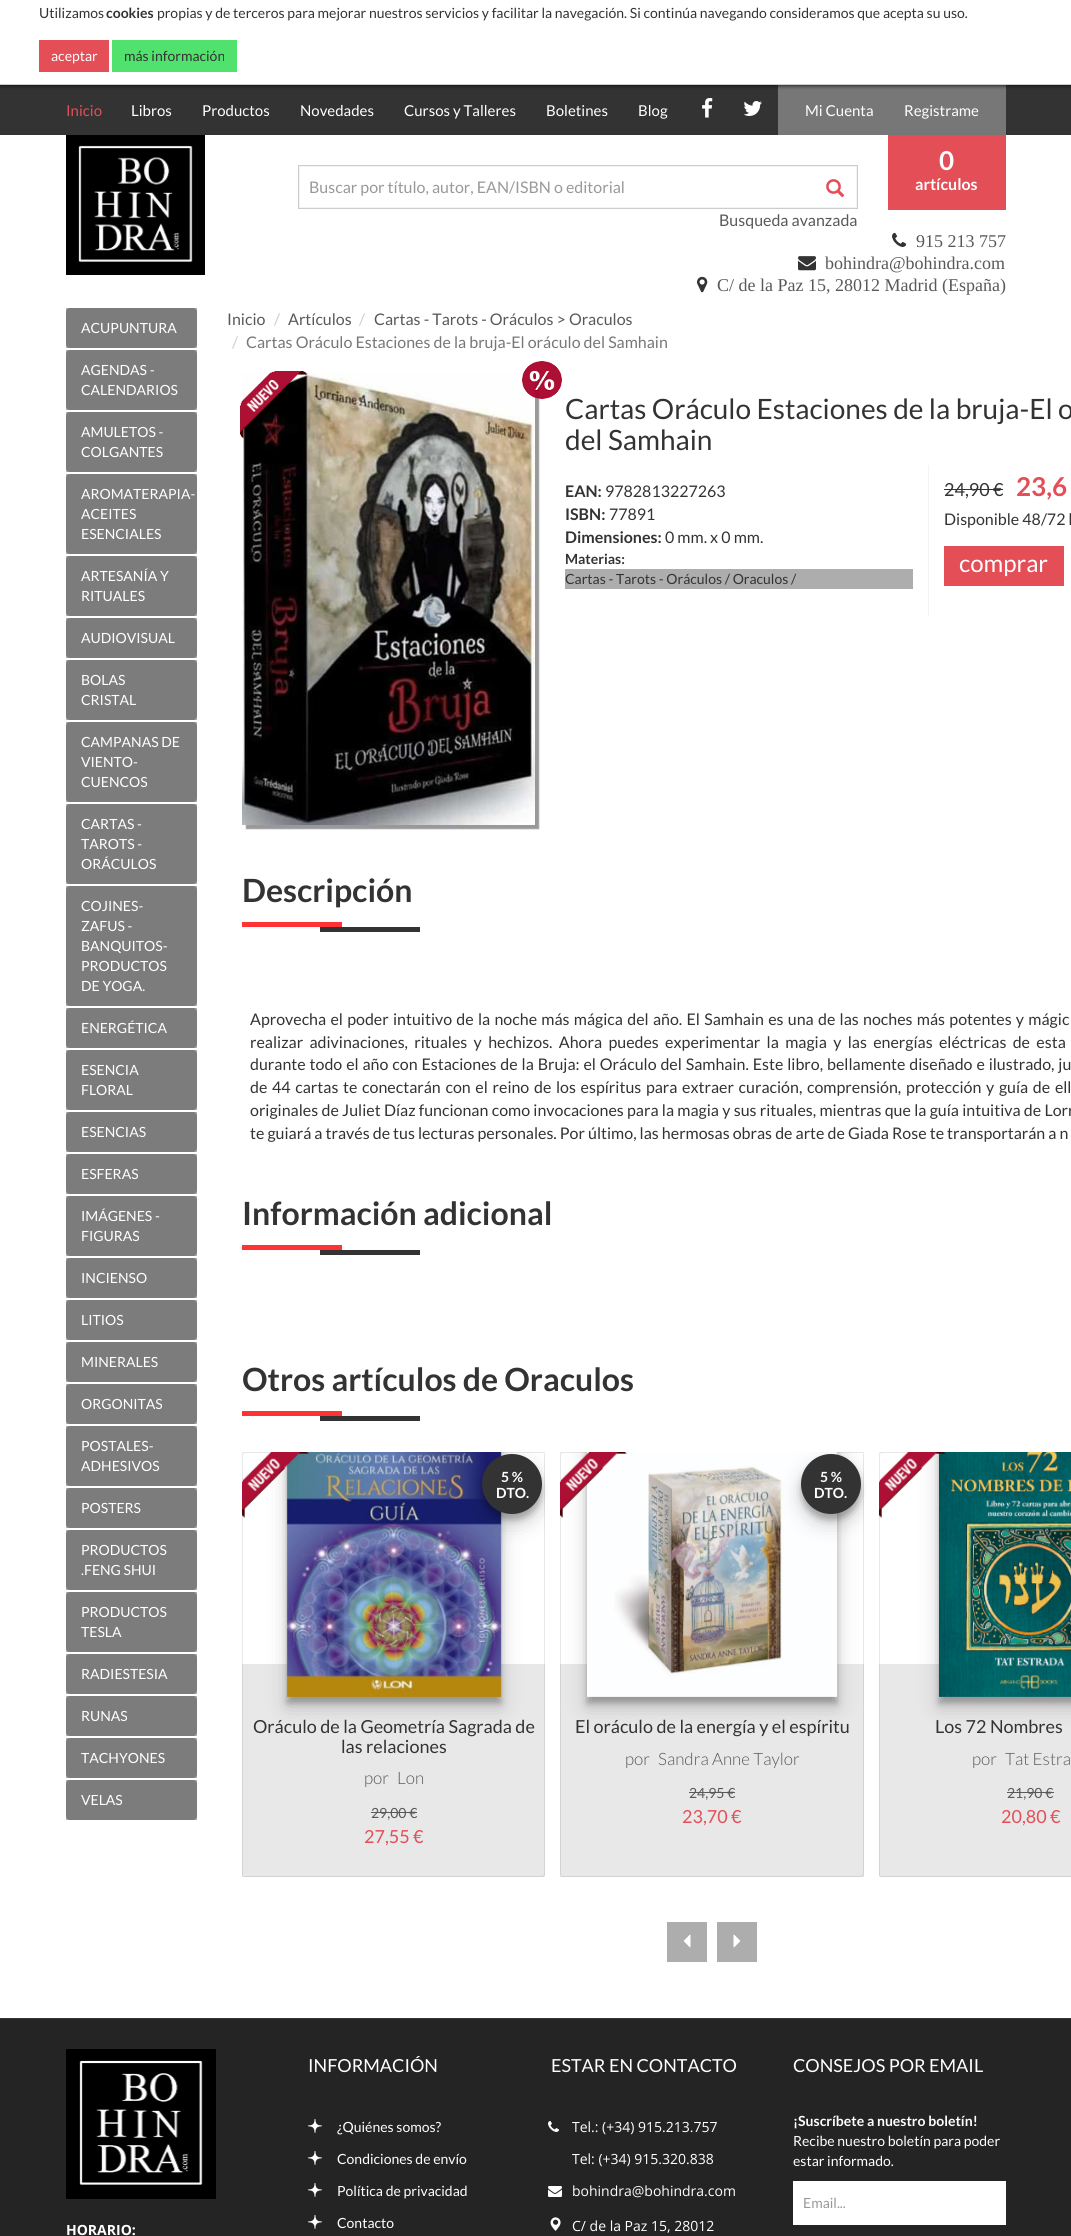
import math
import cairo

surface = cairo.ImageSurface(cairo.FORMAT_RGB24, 1071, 2236)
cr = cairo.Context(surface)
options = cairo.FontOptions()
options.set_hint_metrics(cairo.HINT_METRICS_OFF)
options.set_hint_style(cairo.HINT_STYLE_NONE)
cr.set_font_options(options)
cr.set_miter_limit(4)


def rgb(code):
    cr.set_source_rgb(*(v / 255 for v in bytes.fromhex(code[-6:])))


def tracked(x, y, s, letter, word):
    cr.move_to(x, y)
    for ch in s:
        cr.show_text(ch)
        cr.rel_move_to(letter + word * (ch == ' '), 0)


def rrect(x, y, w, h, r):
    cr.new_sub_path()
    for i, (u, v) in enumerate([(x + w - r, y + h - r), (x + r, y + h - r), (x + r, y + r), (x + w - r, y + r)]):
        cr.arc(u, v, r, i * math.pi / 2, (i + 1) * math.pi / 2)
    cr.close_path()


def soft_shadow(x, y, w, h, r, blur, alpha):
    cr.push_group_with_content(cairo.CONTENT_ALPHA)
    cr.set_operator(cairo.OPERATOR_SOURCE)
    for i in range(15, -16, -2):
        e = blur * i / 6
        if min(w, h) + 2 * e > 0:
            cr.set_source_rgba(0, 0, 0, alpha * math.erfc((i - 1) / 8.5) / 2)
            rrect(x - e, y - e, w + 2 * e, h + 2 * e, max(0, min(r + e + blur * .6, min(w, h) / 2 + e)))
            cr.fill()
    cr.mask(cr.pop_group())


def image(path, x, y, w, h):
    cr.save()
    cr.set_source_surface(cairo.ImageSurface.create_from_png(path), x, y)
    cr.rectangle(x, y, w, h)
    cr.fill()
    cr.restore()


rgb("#ffffff")
cr.paint()
rgb("#333333")
cr.rectangle(0, 85, 1071, 50)
cr.fill()
rgb("#777777")
cr.rectangle(778, 85, 228, 50)
cr.fill()
cr.save()
cr.rectangle(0, 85, 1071, 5)
cr.clip()
rgb("#000000")
soft_shadow(0, 0, 1071, 85, 0, 2.5, 1)
cr.restore()
for x, y, w, h, color in [
    (0, 84, 1071, 1, "#cccccc"),
    (39, 40, 70, 32, "#e34e57"),
    (112, 40, 125, 32, "#50e26d"),
]:
    rgb(color)
    cr.rectangle(x, y, w, h)
    cr.fill()
image("img/1.png", 702, 98, 11, 20)
image("img/2.png", 743, 101, 19, 15)
image("img/3.png", 66, 135, 139, 140)
rgb("#e34e57")
cr.rectangle(888, 135, 118, 75)
cr.fill()
cr.rectangle(299.5, 166.5, 557, 41)
rgb("#f4f2f4")
cr.set_line_width(1)
cr.stroke()
cr.rectangle(298.5, 165.5, 559, 43)
rgb("#cccccc")
cr.stroke()
image("img/4.png", 826, 179, 19, 19)
image("img/5.png", 892, 232, 15, 15)
image("img/6.png", 798, 256, 18, 15)
image("img/7.png", 697, 276, 11, 17)
rgb("#adadad")
cr.rectangle(66, 308, 131, 40)
cr.fill()
rgb("#7c7c7c")
rrect(66, 308, 131, 40, 4)
cr.fill()
rgb("#adadad")
cr.rectangle(66, 350, 131, 60)
cr.fill()
rgb("#7c7c7c")
rrect(66, 350, 131, 60, 4)
cr.fill()
rgb("#adadad")
cr.rectangle(66, 412, 131, 60)
cr.fill()
rgb("#7c7c7c")
rrect(66, 412, 131, 60, 4)
cr.fill()
rgb("#adadad")
cr.rectangle(66, 474, 131, 80)
cr.fill()
rgb("#7c7c7c")
rrect(66, 474, 131, 80, 4)
cr.fill()
rgb("#adadad")
cr.rectangle(66, 556, 131, 60)
cr.fill()
rgb("#7c7c7c")
rrect(66, 556, 131, 60, 4)
cr.fill()
rgb("#adadad")
cr.rectangle(66, 618, 131, 40)
cr.fill()
rgb("#7c7c7c")
rrect(66, 618, 131, 40, 4)
cr.fill()
rgb("#adadad")
cr.rectangle(66, 660, 131, 60)
cr.fill()
rgb("#7c7c7c")
rrect(66, 660, 131, 60, 4)
cr.fill()
rgb("#adadad")
cr.rectangle(66, 722, 131, 80)
cr.fill()
rgb("#7c7c7c")
rrect(66, 722, 131, 80, 4)
cr.fill()
rgb("#adadad")
cr.rectangle(66, 804, 131, 80)
cr.fill()
rgb("#7c7c7c")
rrect(66, 804, 131, 80, 4)
cr.fill()
rgb("#adadad")
cr.rectangle(66, 886, 131, 120)
cr.fill()
rgb("#7c7c7c")
rrect(66, 886, 131, 120, 4)
cr.fill()
rgb("#adadad")
cr.rectangle(66, 1008, 131, 40)
cr.fill()
rgb("#7c7c7c")
rrect(66, 1008, 131, 40, 4)
cr.fill()
rgb("#adadad")
cr.rectangle(66, 1050, 131, 60)
cr.fill()
rgb("#7c7c7c")
rrect(66, 1050, 131, 60, 4)
cr.fill()
rgb("#adadad")
cr.rectangle(66, 1112, 131, 40)
cr.fill()
rgb("#7c7c7c")
rrect(66, 1112, 131, 40, 4)
cr.fill()
rgb("#adadad")
cr.rectangle(66, 1154, 131, 40)
cr.fill()
rgb("#7c7c7c")
rrect(66, 1154, 131, 40, 4)
cr.fill()
rgb("#adadad")
cr.rectangle(66, 1196, 131, 60)
cr.fill()
rgb("#7c7c7c")
rrect(66, 1196, 131, 60, 4)
cr.fill()
rgb("#adadad")
cr.rectangle(66, 1258, 131, 40)
cr.fill()
rgb("#7c7c7c")
rrect(66, 1258, 131, 40, 4)
cr.fill()
rgb("#adadad")
cr.rectangle(66, 1300, 131, 40)
cr.fill()
rgb("#7c7c7c")
rrect(66, 1300, 131, 40, 4)
cr.fill()
rgb("#adadad")
cr.rectangle(66, 1342, 131, 40)
cr.fill()
rgb("#7c7c7c")
rrect(66, 1342, 131, 40, 4)
cr.fill()
rgb("#adadad")
cr.rectangle(66, 1384, 131, 40)
cr.fill()
rgb("#7c7c7c")
rrect(66, 1384, 131, 40, 4)
cr.fill()
rgb("#adadad")
cr.rectangle(66, 1426, 131, 60)
cr.fill()
rgb("#7c7c7c")
rrect(66, 1426, 131, 60, 4)
cr.fill()
rgb("#adadad")
cr.rectangle(66, 1488, 131, 40)
cr.fill()
rgb("#7c7c7c")
rrect(66, 1488, 131, 40, 4)
cr.fill()
rgb("#adadad")
cr.rectangle(66, 1530, 131, 60)
cr.fill()
rgb("#7c7c7c")
rrect(66, 1530, 131, 60, 4)
cr.fill()
rgb("#adadad")
cr.rectangle(66, 1592, 131, 60)
cr.fill()
rgb("#7c7c7c")
rrect(66, 1592, 131, 60, 4)
cr.fill()
rgb("#adadad")
cr.rectangle(66, 1654, 131, 40)
cr.fill()
rgb("#7c7c7c")
rrect(66, 1654, 131, 40, 4)
cr.fill()
rgb("#adadad")
cr.rectangle(66, 1696, 131, 40)
cr.fill()
rgb("#7c7c7c")
rrect(66, 1696, 131, 40, 4)
cr.fill()
rgb("#adadad")
cr.rectangle(66, 1738, 131, 40)
cr.fill()
rgb("#7c7c7c")
rrect(66, 1738, 131, 40, 4)
cr.fill()
rgb("#adadad")
cr.rectangle(66, 1780, 131, 40)
cr.fill()
rgb("#7c7c7c")
rrect(66, 1780, 131, 40, 4)
cr.fill()
rgb("#000000")
soft_shadow(246, 377, 293, 452, 0, 0.5, 0.4)
image("img/10.png", 242, 373, 293, 452)
image("img/8.png", 240, 371, 68, 68)
image("img/9.png", 522, 361, 40, 38)
for x, y, w, h, color in [
    (565, 569, 348, 20, "#adadad"),
    (928, 465, 1, 151, "#f4f2f4"),
    (944, 489, 59, 1, "#333333"),
    (944, 546, 120, 40, "#e34e57"),
    (242, 922, 100, 5, "#ff3333"),
    (320, 927, 100, 5, "#333333"),
    (242, 1245, 100, 5, "#ff3333"),
    (320, 1250, 100, 5, "#333333"),
    (242, 1411, 100, 5, "#ff3333"),
    (320, 1416, 100, 5, "#333333"),
]:
    rgb(color)
    cr.rectangle(x, y, w, h)
    cr.fill()
rgb("#e8e8e8")
cr.new_path()
cr.move_to(242, 1664)
cr.line_to(545, 1664)
cr.line_to(545, 1875)
cr.curve_to(545, 1876, 544, 1877, 543, 1877)
cr.line_to(244, 1877)
cr.curve_to(243, 1877, 242, 1876, 242, 1875)
cr.close_path()
cr.fill()
cr.set_source_rgba(0, 0, 0, 0.09)
cr.new_path()
cr.move_to(242, 1876)
cr.line_to(243, 1877)
cr.line_to(544, 1877)
cr.line_to(545, 1876)
cr.line_to(545, 1454)
cr.line_to(544, 1452)
cr.line_to(544, 1874)
cr.curve_to(544, 1875, 543, 1876, 542, 1876)
cr.close_path()
cr.fill()
cr.new_path()
cr.move_to(245, 1453)
cr.line_to(545, 1453)
cr.line_to(544, 1452)
cr.line_to(243, 1452)
cr.line_to(242, 1453)
cr.line_to(242, 1875)
cr.line_to(243, 1877)
cr.line_to(243, 1455)
cr.curve_to(243, 1454, 244, 1453, 245, 1453)
cr.close_path()
cr.fill()
cr.save()
rrect(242, 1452, 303, 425, 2)
cr.clip()
rgb("#000000")
soft_shadow(287, 1448, 214, 255, 0, 3, 0.23)
soft_shadow(287, 1452, 214, 255, 0, 10, 0.19)
cr.restore()
image("img/11.png", 286, 1452, 216, 245)
image("img/12.png", 242, 1452, 67, 66)
rgb("#000000")
soft_shadow(482, 1460, 60, 60, 30, 3, 0.23)
cr.save()
rrect(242, 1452, 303, 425, 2)
cr.clip()
soft_shadow(482, 1464, 60, 60, 30, 10, 0.19)
cr.restore()
rgb("#333333")
cr.arc(512, 1484, 30, 0, 2 * math.pi)
cr.fill()
rgb("#595959")
cr.rectangle(371, 1812, 46, 1)
cr.fill()
rgb("#e8e8e8")
cr.new_path()
cr.move_to(560, 1664)
cr.line_to(864, 1664)
cr.line_to(864, 1875)
cr.curve_to(864, 1876, 863, 1877, 862, 1877)
cr.line_to(562, 1877)
cr.curve_to(561, 1877, 560, 1876, 560, 1875)
cr.close_path()
cr.fill()
cr.set_source_rgba(0, 0, 0, 0.09)
cr.new_path()
cr.move_to(560, 1876)
cr.line_to(561, 1877)
cr.line_to(863, 1877)
cr.line_to(864, 1876)
cr.line_to(864, 1454)
cr.line_to(863, 1452)
cr.line_to(863, 1874)
cr.curve_to(863, 1875, 862, 1876, 861, 1876)
cr.close_path()
cr.fill()
cr.new_path()
cr.move_to(563, 1453)
cr.line_to(864, 1453)
cr.line_to(863, 1452)
cr.line_to(561, 1452)
cr.line_to(560, 1453)
cr.line_to(560, 1875)
cr.line_to(561, 1877)
cr.line_to(561, 1455)
cr.curve_to(561, 1454, 562, 1453, 563, 1453)
cr.close_path()
cr.fill()
cr.save()
rrect(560, 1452, 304, 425, 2)
cr.clip()
rgb("#000000")
soft_shadow(587, 1448, 250, 255, 0, 3, 0.23)
soft_shadow(587, 1452, 250, 255, 0, 10, 0.19)
cr.restore()
image("img/13.png", 587, 1452, 251, 245)
image("img/14.png", 560, 1452, 67, 66)
rgb("#000000")
soft_shadow(801, 1460, 60, 60, 30, 3, 0.23)
cr.save()
rrect(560, 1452, 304, 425, 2)
cr.clip()
soft_shadow(801, 1464, 60, 60, 30, 10, 0.19)
cr.restore()
rgb("#333333")
cr.arc(831, 1484, 30, 0, 2 * math.pi)
cr.fill()
rgb("#595959")
cr.rectangle(689, 1792, 46, 1)
cr.fill()
rgb("#e8e8e8")
cr.new_path()
cr.move_to(879, 1664)
cr.line_to(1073, 1664)
cr.line_to(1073, 1875)
cr.curve_to(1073, 1876, 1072, 1877, 1071, 1877)
cr.line_to(881, 1877)
cr.curve_to(880, 1877, 879, 1876, 879, 1875)
cr.close_path()
cr.fill()
cr.set_source_rgba(0, 0, 0, 0.09)
cr.new_path()
cr.move_to(879, 1876)
cr.line_to(880, 1877)
cr.line_to(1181, 1877)
cr.line_to(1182, 1876)
cr.line_to(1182, 1454)
cr.line_to(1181, 1452)
cr.line_to(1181, 1874)
cr.curve_to(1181, 1875, 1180, 1876, 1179, 1876)
cr.close_path()
cr.fill()
cr.new_path()
cr.move_to(882, 1453)
cr.line_to(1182, 1453)
cr.line_to(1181, 1452)
cr.line_to(880, 1452)
cr.line_to(879, 1453)
cr.line_to(879, 1875)
cr.line_to(880, 1877)
cr.line_to(880, 1455)
cr.curve_to(880, 1454, 881, 1453, 882, 1453)
cr.close_path()
cr.fill()
cr.save()
rrect(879, 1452, 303, 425, 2)
cr.clip()
rgb("#000000")
soft_shadow(939, 1448, 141, 255, 0, 3, 0.23)
soft_shadow(939, 1452, 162, 255, 0, 10, 0.19)
cr.restore()
image("img/15.png", 939, 1452, 132, 245)
image("img/16.png", 879, 1452, 67, 66)
rgb("#595959")
cr.rectangle(1007, 1792, 47, 1)
cr.fill()
rgb("#adadad")
cr.rectangle(667, 1922, 40, 40)
cr.fill()
image("img/17.png", 683, 1934, 8, 14)
cr.rectangle(717, 1922, 40, 40)
cr.fill()
image("img/18.png", 733, 1934, 8, 14)
rgb("#242424")
cr.rectangle(0, 2019, 1071, 217)
cr.fill()
rgb("#333333")
cr.rectangle(0, 2018, 1071, 1)
cr.fill()
image("img/19.png", 308, 2119, 14, 14)
image("img/19.png", 308, 2151, 14, 14)
image("img/19.png", 308, 2183, 14, 14)
image("img/19.png", 308, 2215, 14, 14)
image("img/20.png", 548, 2121, 11, 11)
image("img/21.png", 548, 2186, 14, 11)
image("img/22.png", 550, 2217, 11, 14)
rgb("#ffffff")
cr.rectangle(793, 2181, 213, 44)
cr.fill()
image("img/23.png", 66, 2049, 150, 150)
cr.select_font_face("Lato")
cr.set_font_size(14)
rgb("#333333")
cr.move_to(39, 18)
cr.show_text("Utilizamos")
cr.select_font_face("Lato", cairo.FONT_SLANT_NORMAL, cairo.FONT_WEIGHT_BOLD)
cr.move_to(106, 18)
cr.show_text("cookies")
cr.select_font_face("Lato")
cr.move_to(157, 18)
cr.show_text("propias y de terceros para mejorar nuestros servicios y facilitar la navegación. Si continúa navegando consideramos que acepta su uso.")
rgb("#ffffff")
cr.move_to(51, 61)
cr.show_text("aceptar")
rgb("#333333")
cr.move_to(124, 61)
cr.show_text("más información")
cr.set_font_size(15)
rgb("#e34e57")
cr.move_to(66, 116)
cr.show_text("Inicio")
rgb("#ffffff")
for x, y, s in [
    (131, 116, "Libros"),
    (202, 116, "Productos"),
    (300, 116, "Novedades"),
    (404, 116, "Cursos y Talleres"),
    (546, 116, "Boletines"),
    (638, 116, "Blog"),
    (805, 116, "Mi Cuenta"),
    (904, 116, "Registrame"),
]:
    cr.move_to(x, y)
    cr.show_text(s)
cr.select_font_face("Lato", cairo.FONT_SLANT_NORMAL, cairo.FONT_WEIGHT_BOLD)
cr.set_font_size(26)
cr.move_to(939, 170)
cr.show_text("0")
cr.set_font_size(16)
cr.move_to(915, 190)
cr.show_text("artículos")
cr.select_font_face("Lato")
rgb("#999999")
cr.move_to(309, 193)
cr.show_text("Buscar por título, autor, EAN/ISBN o editorial")
rgb("#595959")
cr.move_to(719, 226)
cr.show_text("Busqueda avanzada")
cr.select_font_face("Liberation Serif")
cr.set_font_size(18)
for x, y, s in [
    (916, 247, "915 213 757"),
    (825, 269, "bohindra@bohindra.com"),
    (717, 291, "C/ de la Paz 15, 28012 Madrid (España)"),
]:
    cr.move_to(x, y)
    cr.show_text(s)
cr.select_font_face("Lato")
cr.set_font_size(14)
rgb("#ffffff")
for x, y, s in [
    (81, 333, "ACUPUNTURA"),
    (81, 375, "AGENDAS -"),
    (81, 395, "CALENDARIOS"),
    (81, 437, "AMULETOS -"),
    (81, 457, "COLGANTES"),
    (81, 499, "AROMATERAPIA-"),
    (81, 519, "ACEITES"),
    (81, 539, "ESENCIALES"),
    (81, 581, "ARTESANÍA Y"),
    (81, 601, "RITUALES"),
    (81, 643, "AUDIOVISUAL"),
    (81, 685, "BOLAS"),
    (81, 705, "CRISTAL"),
    (81, 747, "CAMPANAS DE"),
    (81, 767, "VIENTO-"),
    (81, 787, "CUENCOS"),
    (81, 829, "CARTAS -"),
    (81, 849, "TAROTS -"),
    (81, 869, "ORÁCULOS"),
    (81, 911, "COJINES-"),
    (81, 931, "ZAFUS -"),
    (81, 951, "BANQUITOS-"),
    (81, 971, "PRODUCTOS"),
    (81, 991, "DE YOGA."),
    (81, 1033, "ENERGÉTICA"),
    (81, 1075, "ESENCIA"),
    (81, 1095, "FLORAL"),
    (81, 1137, "ESENCIAS"),
    (81, 1179, "ESFERAS"),
    (81, 1221, "IMÁGENES -"),
    (81, 1241, "FIGURAS"),
    (81, 1283, "INCIENSO"),
    (81, 1325, "LITIOS"),
    (81, 1367, "MINERALES"),
    (81, 1409, "ORGONITAS"),
    (81, 1451, "POSTALES-"),
    (81, 1471, "ADHESIVOS"),
    (81, 1513, "POSTERS"),
    (81, 1555, "PRODUCTOS"),
    (81, 1575, ".FENG SHUI"),
    (81, 1617, "PRODUCTOS"),
    (81, 1637, "TESLA"),
    (81, 1679, "RADIESTESIA"),
    (81, 1721, "RUNAS"),
    (81, 1763, "TACHYONES"),
    (81, 1805, "VELAS"),
]:
    cr.move_to(x, y)
    cr.show_text(s)
cr.set_font_size(16)
rgb("#595959")
cr.move_to(227, 325)
cr.show_text("Inicio")
rgb("#cccccc")
cr.move_to(274, 325)
cr.show_text("/")
rgb("#595959")
cr.move_to(288, 325)
cr.show_text("Artículos")
rgb("#cccccc")
cr.move_to(359, 325)
cr.show_text("/")
rgb("#595959")
cr.move_to(374, 325)
cr.show_text("Cartas - Tarots - Oráculos > Oraculos")
rgb("#cccccc")
cr.move_to(232, 348)
cr.show_text("/")
rgb("#777777")
cr.move_to(246, 348)
cr.show_text("Cartas Oráculo Estaciones de la bruja-El oráculo del Samhain")
cr.set_font_size(28)
rgb("#333333")
cr.move_to(565, 419)
cr.show_text("Cartas Oráculo Estaciones de la bruja-El o")
cr.move_to(565, 450)
cr.show_text("del Samhain")
cr.select_font_face("Lato", cairo.FONT_SLANT_NORMAL, cairo.FONT_WEIGHT_BOLD)
cr.set_font_size(16)
cr.move_to(565, 497)
cr.show_text("EAN:")
cr.select_font_face("Lato")
cr.move_to(605, 497)
cr.show_text("9782813227263")
cr.select_font_face("Lato", cairo.FONT_SLANT_NORMAL, cairo.FONT_WEIGHT_BOLD)
cr.move_to(565, 520)
cr.show_text("ISBN:")
cr.select_font_face("Lato")
cr.move_to(609, 520)
cr.show_text("77891")
cr.select_font_face("Lato", cairo.FONT_SLANT_NORMAL, cairo.FONT_WEIGHT_BOLD)
cr.move_to(565, 543)
cr.show_text("Dimensiones:")
cr.select_font_face("Lato")
cr.move_to(665, 543)
cr.show_text("0 mm. x 0 mm.")
cr.select_font_face("Lato", cairo.FONT_SLANT_NORMAL, cairo.FONT_WEIGHT_BOLD)
cr.set_font_size(14)
cr.move_to(565, 564)
cr.show_text("Materias:")
cr.select_font_face("Lato")
cr.move_to(565, 584)
cr.show_text("Cartas - Tarots - Oráculos / Oraculos /")
cr.set_font_size(18)
cr.move_to(944, 496)
cr.show_text("24,90 €")
cr.select_font_face("Lato", cairo.FONT_SLANT_NORMAL, cairo.FONT_WEIGHT_BOLD)
cr.set_font_size(26)
rgb("#e34e57")
cr.move_to(1016, 496)
cr.show_text("23,6")
cr.select_font_face("Lato")
cr.set_font_size(16)
rgb("#333333")
cr.move_to(944, 525)
cr.show_text("Disponible 48/72 h")
cr.set_font_size(24)
rgb("#ffffff")
cr.move_to(959, 572)
cr.show_text("comprar")
cr.select_font_face("Lato", cairo.FONT_SLANT_NORMAL, cairo.FONT_WEIGHT_BOLD)
cr.set_font_size(32)
rgb("#333333")
cr.move_to(242, 902)
cr.show_text("Descripción")
cr.select_font_face("Lato")
cr.set_font_size(16)
tracked(250, 1025, "Aprovecha el poder intuitivo de la noche más mágica del año. El Samhain es una de las noches más potentes y mágic", 0, 1.2)
tracked(250, 1048, "realizar adivinaciones, rituales y hechizos. Ahora puedes experimentar la magia y las energías eléctricas de esta", 0, 3.25)
tracked(250, 1070, "durante todo el año con Estaciones de la Bruja: el Oráculo del Samhain. Este libro, bellamente diseñado e ilustrado, ju", 0, 0.8)
tracked(250, 1093, "de 44 cartas te conectarán con el reino de los espíritus para extraer curación, comprensión, protección y guía de ell", 0, 1.6)
tracked(250, 1116, "originales de Juliet Díaz funcionan como invocaciones para la magia y sus rituales, mientras que la guía intuitiva de Lorr", 0, 0.2)
cr.move_to(250, 1139)
cr.show_text("te guiará a través de tus lecturas personales. Por último, las hermosas obras de arte de Giada Rose te transportarán a n")
cr.select_font_face("Lato", cairo.FONT_SLANT_NORMAL, cairo.FONT_WEIGHT_BOLD)
cr.set_font_size(32)
cr.move_to(242, 1225)
cr.show_text("Información adicional")
cr.move_to(242, 1391)
cr.show_text("Otros artículos de Oraculos")
cr.set_font_size(14)
rgb("#ffffff")
cr.move_to(501, 1482)
cr.show_text("5 %")
cr.move_to(496, 1498)
cr.show_text("DTO.")
cr.select_font_face("Lato")
cr.set_font_size(18)
rgb("#333333")
cr.move_to(253, 1733)
cr.show_text("Oráculo de la Geometría Sagrada de")
cr.move_to(341, 1753)
cr.show_text("las relaciones")
cr.select_font_face("Lato Light")
cr.set_font_size(17)
rgb("#595959")
cr.move_to(364, 1784)
cr.show_text("por")
cr.move_to(397, 1784)
cr.show_text("Lon")
cr.select_font_face("Lato")
cr.set_font_size(14)
cr.move_to(371, 1818)
cr.show_text("29,00 €")
cr.set_font_size(18)
rgb("#e34e57")
cr.move_to(364, 1843)
cr.show_text("27,55 €")
cr.select_font_face("Lato", cairo.FONT_SLANT_NORMAL, cairo.FONT_WEIGHT_BOLD)
cr.set_font_size(14)
rgb("#ffffff")
cr.move_to(820, 1482)
cr.show_text("5 %")
cr.move_to(814, 1498)
cr.show_text("DTO.")
cr.select_font_face("Lato")
cr.set_font_size(18)
rgb("#333333")
cr.move_to(575, 1733)
cr.show_text("El oráculo de la energía y el espíritu")
cr.select_font_face("Lato Light")
cr.set_font_size(17)
rgb("#595959")
cr.move_to(625, 1765)
cr.show_text("por")
cr.move_to(658, 1765)
cr.show_text("Sandra Anne Taylor")
cr.select_font_face("Lato")
cr.set_font_size(14)
cr.move_to(689, 1798)
cr.show_text("24,95 €")
cr.set_font_size(18)
rgb("#e34e57")
cr.move_to(682, 1823)
cr.show_text("23,70 €")
rgb("#333333")
cr.move_to(935, 1733)
cr.show_text("Los 72 Nombres")
cr.select_font_face("Lato Light")
cr.set_font_size(17)
rgb("#595959")
cr.move_to(972, 1765)
cr.show_text("por")
cr.move_to(1005, 1765)
cr.show_text("Tat Estra")
cr.select_font_face("Lato")
cr.set_font_size(14)
cr.move_to(1007, 1798)
cr.show_text("21,90 €")
cr.set_font_size(18)
rgb("#e34e57")
cr.move_to(1001, 1823)
cr.show_text("20,80 €")
rgb("#ffffff")
cr.move_to(308, 2072)
cr.show_text("INFORMACIÓN")
cr.set_font_size(14)
for x, y, s in [
    (337, 2132, "¿Quiénes somos?"),
    (337, 2164, "Condiciones de envío"),
    (337, 2196, "Política de privacidad"),
    (337, 2228, "Contacto"),
]:
    cr.move_to(x, y)
    cr.show_text(s)
cr.set_font_size(18)
cr.move_to(551, 2072)
cr.show_text("ESTAR EN CONTACTO")
cr.select_font_face("Open Sans")
cr.set_font_size(14)
for x, y, s in [
    (572, 2132, "Tel.: (+34) 915.213.757"),
    (572, 2164, "Tel: (+34) 915.320.838"),
    (572, 2196, "bohindra@bohindra.com"),
    (572, 2231, "C/ de la Paz 15, 28012"),
]:
    cr.move_to(x, y)
    cr.show_text(s)
cr.select_font_face("Lato")
cr.set_font_size(18)
cr.move_to(793, 2072)
cr.show_text("CONSEJOS POR EMAIL")
cr.select_font_face("Lato", cairo.FONT_SLANT_NORMAL, cairo.FONT_WEIGHT_BOLD)
cr.set_font_size(14)
cr.move_to(793, 2126)
cr.show_text("¡Suscríbete a nuestro boletín!")
cr.select_font_face("Lato")
cr.move_to(793, 2146)
cr.show_text("Recibe nuestro boletín para poder")
cr.move_to(793, 2166)
cr.show_text("estar informado.")
rgb("#999999")
cr.move_to(803, 2208)
cr.show_text("Email...")
cr.select_font_face("Open Sans", cairo.FONT_SLANT_NORMAL, cairo.FONT_WEIGHT_BOLD)
rgb("#ffffff")
cr.move_to(66, 2235)
cr.show_text("HORARIO:")
surface.write_to_png("page.png")
